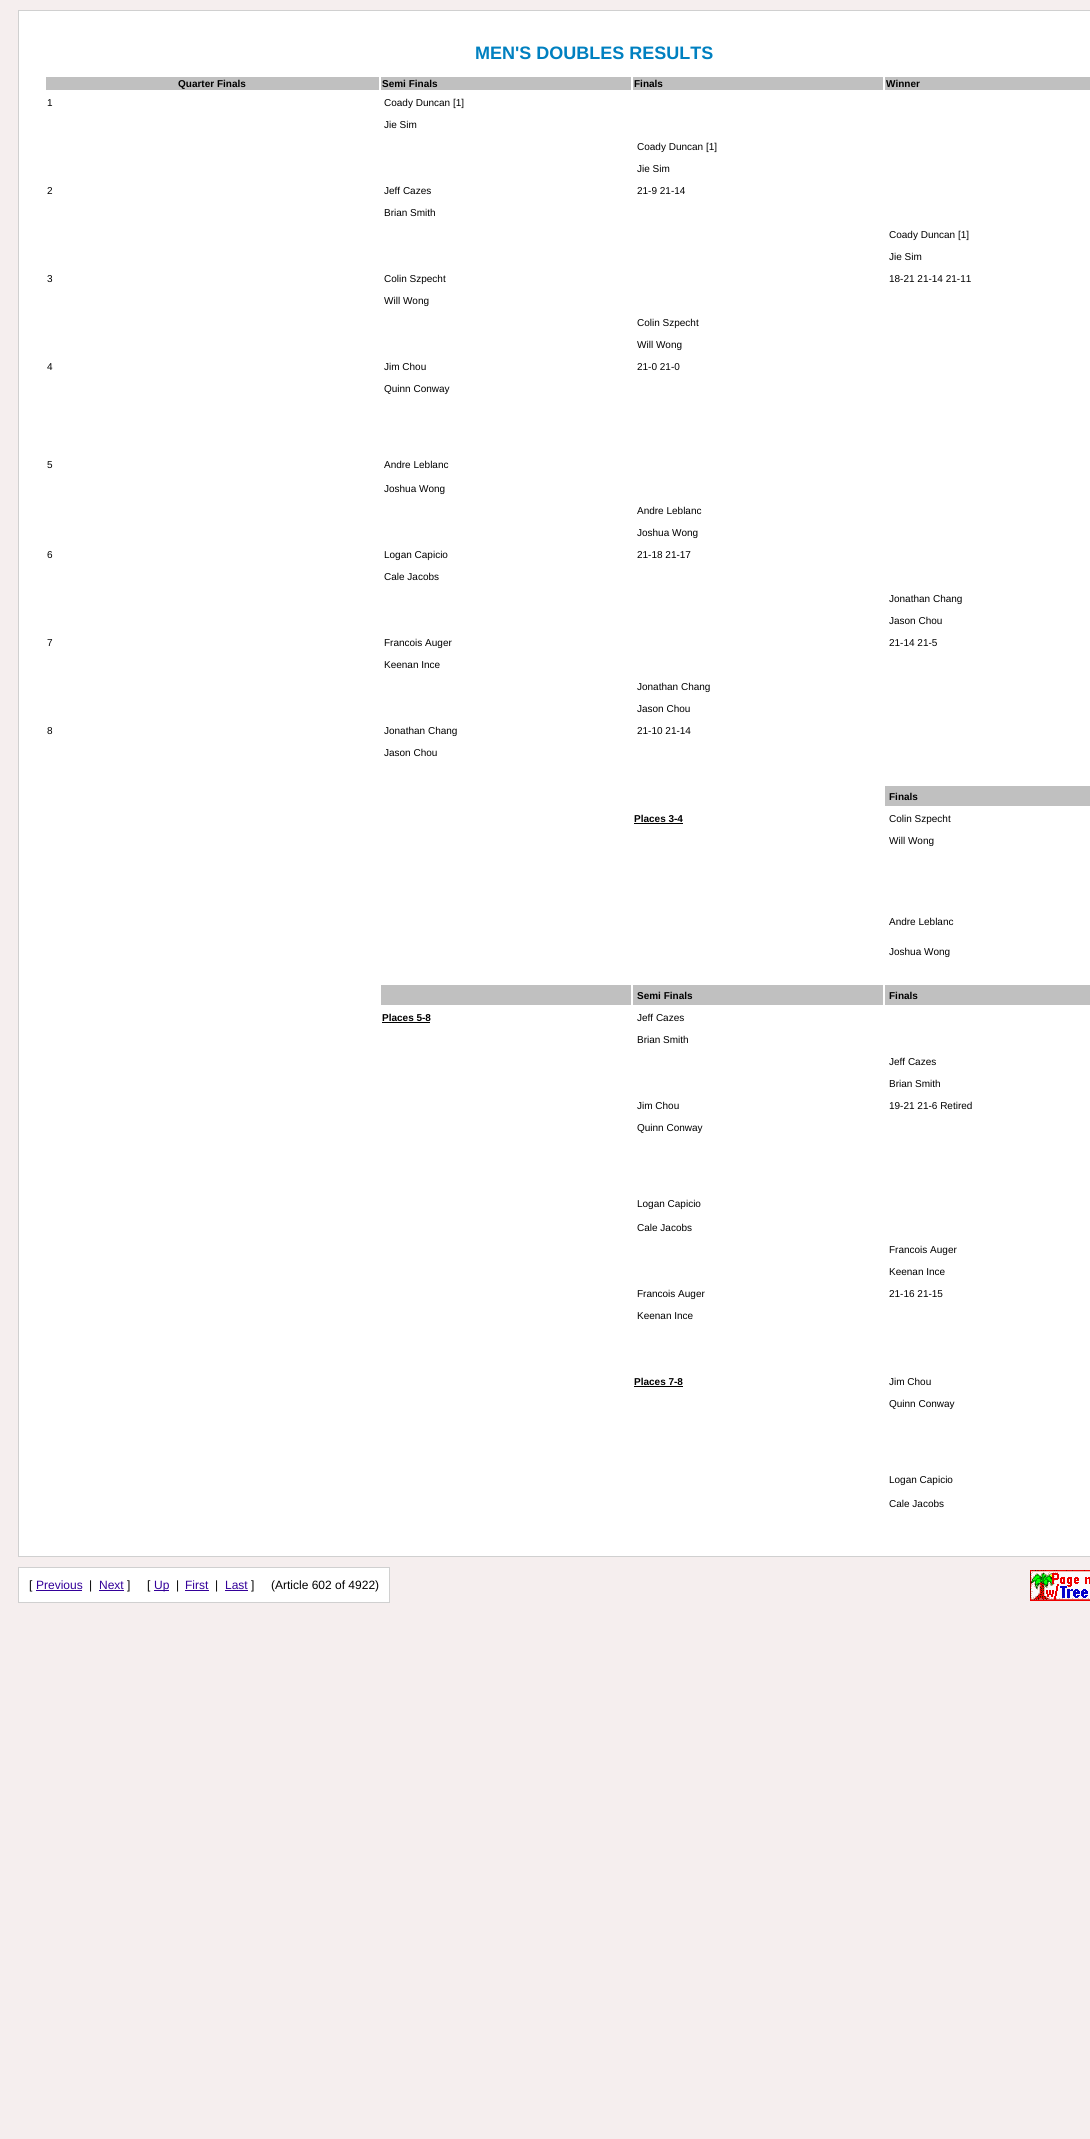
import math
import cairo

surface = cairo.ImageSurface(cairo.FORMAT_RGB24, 1090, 2139)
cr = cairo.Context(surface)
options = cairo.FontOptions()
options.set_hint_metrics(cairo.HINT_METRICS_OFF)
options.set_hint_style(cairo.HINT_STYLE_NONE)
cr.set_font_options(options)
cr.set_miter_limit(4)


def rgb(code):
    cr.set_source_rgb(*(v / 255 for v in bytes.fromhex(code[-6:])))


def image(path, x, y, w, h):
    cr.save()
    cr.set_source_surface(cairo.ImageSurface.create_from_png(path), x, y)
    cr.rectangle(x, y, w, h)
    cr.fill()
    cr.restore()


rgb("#f5eeee")
cr.paint()
rgb("#ffffff")
cr.rectangle(18.5, 10.5, 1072, 1546)
cr.fill_preserve()
rgb("#d0d0d0")
cr.set_line_width(1)
cr.stroke()
for x, y, w, h, color in [
    (46, 77, 333, 13, "#c0c0c0"),
    (381, 77, 250, 13, "#c0c0c0"),
    (633, 77, 250, 13, "#c0c0c0"),
    (885, 77, 205, 13, "#c0c0c0"),
    (885, 786, 205, 20, "#c0c0c0"),
    (634, 823, 49, 1, "#000000"),
    (381, 985, 250, 20, "#c0c0c0"),
    (633, 985, 250, 20, "#c0c0c0"),
    (885, 985, 205, 20, "#c0c0c0"),
    (382, 1022, 48, 1, "#000000"),
    (634, 1386, 49, 1, "#000000"),
]:
    rgb(color)
    cr.rectangle(x, y, w, h)
    cr.fill()
rgb("#ffffff")
cr.rectangle(18.5, 1567.5, 371, 35)
cr.fill_preserve()
rgb("#d0d0d0")
cr.stroke()
for x, y, w, h, color in [
    (36, 1590, 46, 1, "#330099"),
    (99, 1590, 25, 1, "#330099"),
    (154, 1590, 15, 1, "#330099"),
    (185, 1590, 24, 1, "#330099"),
    (225, 1590, 23, 1, "#330099"),
]:
    rgb(color)
    cr.rectangle(x, y, w, h)
    cr.fill()
image("img/1.png", 1030, 1570, 60, 31)
cr.select_font_face("Liberation Sans", cairo.FONT_SLANT_NORMAL, cairo.FONT_WEIGHT_BOLD)
cr.set_font_size(18)
rgb("#0080c0")
cr.move_to(475, 59)
cr.show_text("MEN'S DOUBLES RESULTS")
cr.set_font_size(10)
rgb("#000000")
for x, y, s in [
    (178, 87, "Quarter Finals"),
    (382, 87, "Semi Finals"),
    (634, 87, "Finals"),
    (886, 87, "Winner"),
]:
    cr.move_to(x, y)
    cr.show_text(s)
cr.select_font_face("Liberation Sans")
for x, y, s in [
    (47, 106, "1"),
    (384, 106, "Coady Duncan [1]"),
    (384, 128, "Jie Sim"),
    (637, 150, "Coady Duncan [1]"),
    (637, 172, "Jie Sim"),
    (47, 194, "2"),
    (384, 194, "Jeff Cazes"),
    (637, 194, "21-9 21-14"),
    (384, 216, "Brian Smith"),
    (889, 238, "Coady Duncan [1]"),
    (889, 260, "Jie Sim"),
    (47, 282, "3"),
    (384, 282, "Colin Szpecht"),
    (889, 282, "18-21 21-14 21-11"),
    (384, 304, "Will Wong"),
    (637, 326, "Colin Szpecht"),
    (637, 348, "Will Wong"),
    (47, 370, "4"),
    (384, 370, "Jim Chou"),
    (637, 370, "21-0 21-0"),
    (384, 392, "Quinn Conway"),
    (47, 468, "5"),
    (384, 468, "Andre Leblanc"),
    (384, 492, "Joshua Wong"),
    (637, 514, "Andre Leblanc"),
    (637, 536, "Joshua Wong"),
    (47, 558, "6"),
    (384, 558, "Logan Capicio"),
    (637, 558, "21-18 21-17"),
    (384, 580, "Cale Jacobs"),
    (889, 602, "Jonathan Chang"),
    (889, 624, "Jason Chou"),
    (47, 646, "7"),
    (384, 646, "Francois Auger"),
    (889, 646, "21-14 21-5"),
    (384, 668, "Keenan Ince"),
    (637, 690, "Jonathan Chang"),
    (637, 712, "Jason Chou"),
    (47, 734, "8"),
    (384, 734, "Jonathan Chang"),
    (637, 734, "21-10 21-14"),
    (384, 756, "Jason Chou"),
]:
    cr.move_to(x, y)
    cr.show_text(s)
cr.select_font_face("Liberation Sans", cairo.FONT_SLANT_NORMAL, cairo.FONT_WEIGHT_BOLD)
cr.move_to(889, 800)
cr.show_text("Finals")
cr.move_to(634, 822)
cr.show_text("Places 3-4")
cr.select_font_face("Liberation Sans")
for x, y, s in [
    (889, 822, "Colin Szpecht"),
    (889, 844, "Will Wong"),
    (889, 925, "Andre Leblanc"),
    (889, 955, "Joshua Wong"),
]:
    cr.move_to(x, y)
    cr.show_text(s)
cr.select_font_face("Liberation Sans", cairo.FONT_SLANT_NORMAL, cairo.FONT_WEIGHT_BOLD)
for x, y, s in [
    (637, 999, "Semi Finals"),
    (889, 999, "Finals"),
    (382, 1021, "Places 5-8"),
]:
    cr.move_to(x, y)
    cr.show_text(s)
cr.select_font_face("Liberation Sans")
for x, y, s in [
    (637, 1021, "Jeff Cazes"),
    (637, 1043, "Brian Smith"),
    (889, 1065, "Jeff Cazes"),
    (889, 1087, "Brian Smith"),
    (637, 1109, "Jim Chou"),
    (889, 1109, "19-21 21-6 Retired"),
    (637, 1131, "Quinn Conway"),
    (637, 1207, "Logan Capicio"),
    (637, 1231, "Cale Jacobs"),
    (889, 1253, "Francois Auger"),
    (889, 1275, "Keenan Ince"),
    (637, 1297, "Francois Auger"),
    (889, 1297, "21-16 21-15"),
    (637, 1319, "Keenan Ince"),
]:
    cr.move_to(x, y)
    cr.show_text(s)
cr.select_font_face("Liberation Sans", cairo.FONT_SLANT_NORMAL, cairo.FONT_WEIGHT_BOLD)
cr.move_to(634, 1385)
cr.show_text("Places 7-8")
cr.select_font_face("Liberation Sans")
for x, y, s in [
    (889, 1385, "Jim Chou"),
    (889, 1407, "Quinn Conway"),
    (889, 1483, "Logan Capicio"),
    (889, 1507, "Cale Jacobs"),
]:
    cr.move_to(x, y)
    cr.show_text(s)
cr.set_font_size(12)
cr.move_to(29, 1589)
cr.show_text("[")
rgb("#330099")
cr.move_to(36, 1589)
cr.show_text("Previous")
rgb("#000000")
cr.move_to(89, 1589)
cr.show_text("|")
rgb("#330099")
cr.move_to(99, 1589)
cr.show_text("Next")
rgb("#000000")
cr.move_to(127, 1589)
cr.show_text("]     [")
rgb("#330099")
cr.move_to(154, 1589)
cr.show_text("Up")
rgb("#000000")
cr.move_to(176, 1589)
cr.show_text("|")
rgb("#330099")
cr.move_to(185, 1589)
cr.show_text("First")
rgb("#000000")
cr.move_to(215, 1589)
cr.show_text("|")
rgb("#330099")
cr.move_to(225, 1589)
cr.show_text("Last")
rgb("#000000")
cr.move_to(251, 1589)
cr.show_text("]     (Article 602 of 4922)")
surface.write_to_png("page.png")
